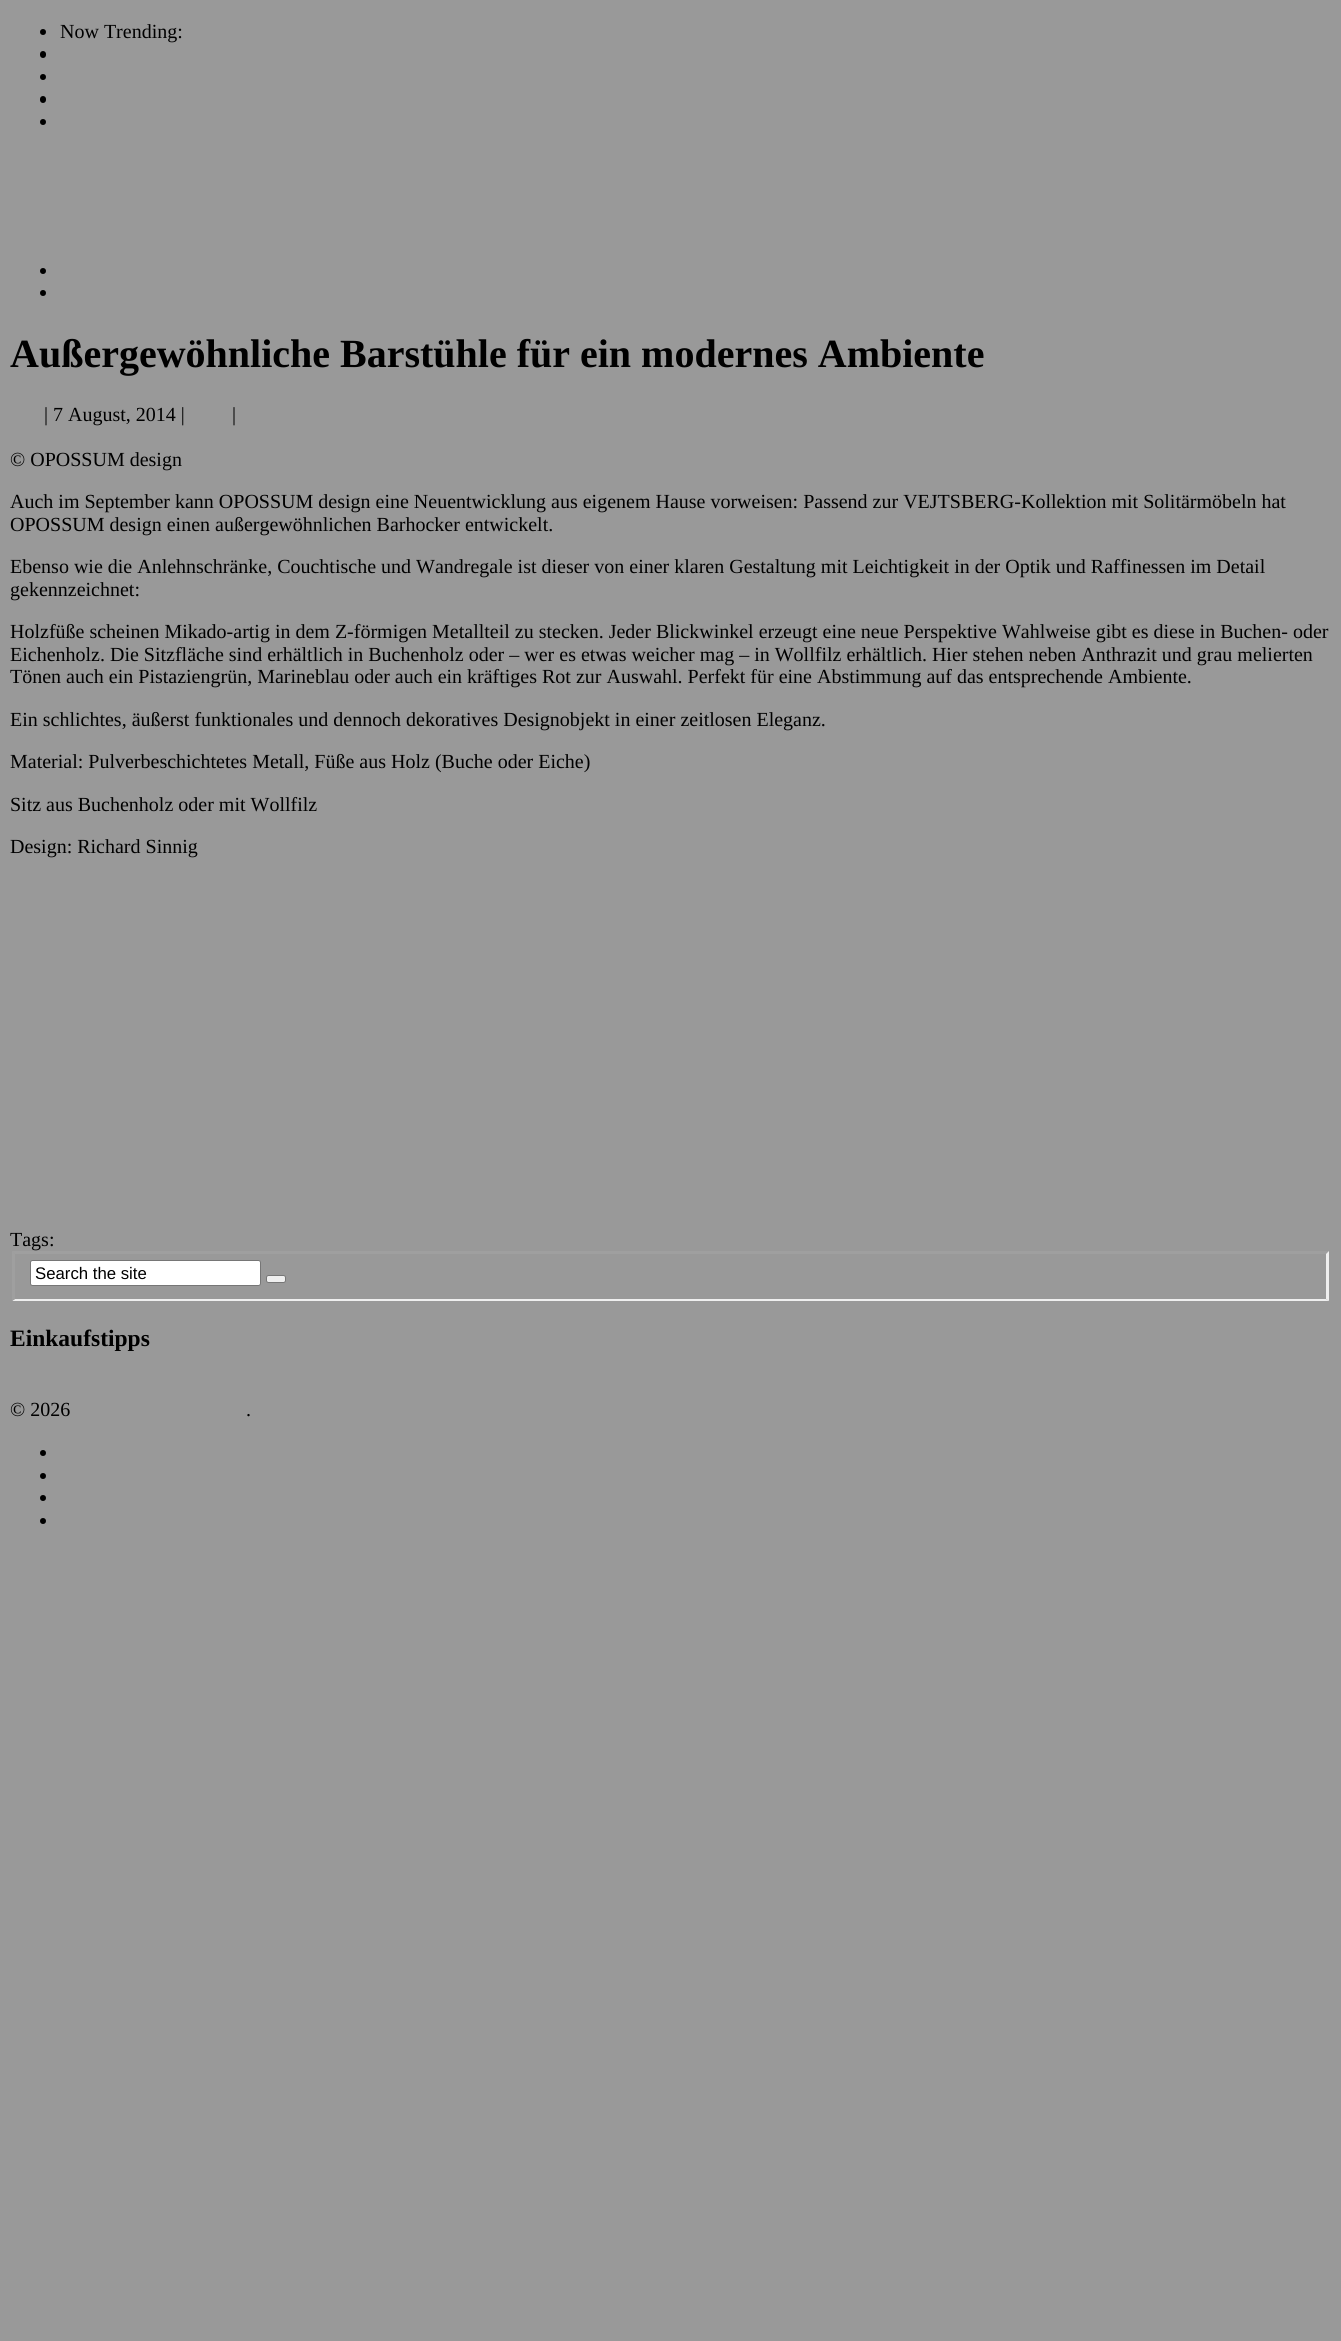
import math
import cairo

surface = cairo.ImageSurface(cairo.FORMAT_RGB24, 1341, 2341)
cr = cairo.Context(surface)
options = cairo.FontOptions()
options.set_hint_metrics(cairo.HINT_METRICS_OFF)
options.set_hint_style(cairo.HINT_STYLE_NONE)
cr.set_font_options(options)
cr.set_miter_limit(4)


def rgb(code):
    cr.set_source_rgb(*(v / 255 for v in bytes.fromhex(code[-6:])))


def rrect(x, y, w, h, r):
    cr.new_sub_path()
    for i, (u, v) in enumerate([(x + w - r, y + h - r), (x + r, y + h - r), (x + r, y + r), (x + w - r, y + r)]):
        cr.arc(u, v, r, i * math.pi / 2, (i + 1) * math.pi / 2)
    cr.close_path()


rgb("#999999")
cr.paint()
rgb("#000000")
cr.arc(43, 32, 3, 0, 2 * math.pi)
cr.fill()
rrect(40, 51, 6, 7, 3)
cr.fill()
cr.arc(43, 77, 3, 0, 2 * math.pi)
cr.fill()
rrect(40, 96, 6, 7, 3)
cr.fill()
cr.arc(43, 122, 3, 0, 2 * math.pi)
cr.fill()
cr.arc(43, 271, 3, 0, 2 * math.pi)
cr.fill()
cr.arc(43, 293, 3, 0, 2 * math.pi)
cr.fill()
rgb("#9f9f9f")
cr.new_path()
cr.move_to(12, 1251)
cr.line_to(1329, 1251)
cr.line_to(1326, 1254)
cr.line_to(15, 1254)
cr.close_path()
cr.fill()
rgb("#efefef")
cr.new_path()
cr.move_to(1329, 1251)
cr.line_to(1329, 1301)
cr.line_to(1326, 1299)
cr.line_to(1326, 1254)
cr.close_path()
cr.fill()
cr.new_path()
cr.move_to(1329, 1301)
cr.line_to(12, 1301)
cr.line_to(15, 1299)
cr.line_to(1326, 1299)
cr.close_path()
cr.fill()
rgb("#9f9f9f")
cr.new_path()
cr.move_to(12, 1301)
cr.line_to(12, 1251)
cr.line_to(15, 1254)
cr.line_to(15, 1299)
cr.close_path()
cr.fill()
rgb("#ffffff")
rrect(30.5, 1260.5, 230, 25, 2)
cr.fill_preserve()
rgb("#767676")
cr.set_line_width(1)
cr.stroke()
rgb("#efefef")
rrect(266.5, 1275.5, 19, 7, 2)
cr.fill_preserve()
rgb("#767676")
cr.stroke()
rgb("#000000")
cr.arc(43, 1453, 3, 0, 2 * math.pi)
cr.fill()
cr.arc(43, 1476, 3, 0, 2 * math.pi)
cr.fill()
cr.arc(43, 1498, 3, 0, 2 * math.pi)
cr.fill()
cr.arc(43, 1521, 3, 0, 2 * math.pi)
cr.fill()
cr.select_font_face("Liberation Serif")
cr.set_font_size(20)
cr.move_to(60, 38)
cr.show_text("Now Trending:")
cr.select_font_face("Liberation Serif", cairo.FONT_SLANT_NORMAL, cairo.FONT_WEIGHT_BOLD)
cr.set_font_size(40)
cr.move_to(10, 367)
cr.show_text("Außergewöhnliche Barstühle für ein modernes Ambiente")
cr.select_font_face("Liberation Serif")
cr.set_font_size(20)
for x, y, s in [
    (44, 421, "| 7 August, 2014 |"),
    (232, 421, "|"),
    (10, 466, "© OPOSSUM design"),
    (10, 508, "Auch im September kann OPOSSUM design eine Neuentwicklung aus eigenem Hause vorweisen: Passend zur VEJTSBERG-Kollektion mit Solitärmöbeln hat"),
    (10, 531, "OPOSSUM design einen außergewöhnlichen Barhocker entwickelt."),
    (10, 573, "Ebenso wie die Anlehnschränke, Couchtische und Wandregale ist dieser von einer klaren Gestaltung mit Leichtigkeit in der Optik und Raffinessen im Detail"),
    (10, 596, "gekennzeichnet:"),
    (10, 638, "Holzfüße scheinen Mikado-artig in dem Z-förmigen Metallteil zu stecken. Jeder Blickwinkel erzeugt eine neue Perspektive Wahlweise gibt es diese in Buchen- oder"),
    (10, 661, "Eichenholz. Die Sitzfläche sind erhältlich in Buchenholz oder – wer es etwas weicher mag – in Wollfilz erhältlich. Hier stehen neben Anthrazit und grau melierten"),
    (10, 683, "Tönen auch ein Pistaziengrün, Marineblau oder auch ein kräftiges Rot zur Auswahl. Perfekt für eine Abstimmung auf das entsprechende Ambiente."),
    (10, 726, "Ein schlichtes, äußerst funktionales und dennoch dekoratives Designobjekt in einer zeitlosen Eleganz."),
    (10, 768, "Material: Pulverbeschichtetes Metall, Füße aus Holz (Buche oder Eiche)"),
    (10, 811, "Sitz aus Buchenholz oder mit Wollfilz"),
    (10, 853, "Design: Richard Sinnig"),
    (10, 1246, "Tags:"),
]:
    cr.move_to(x, y)
    cr.show_text(s)
cr.select_font_face("Liberation Sans")
cr.set_font_size(16.75)
cr.move_to(35, 1279)
cr.show_text("Search the site")
cr.select_font_face("Liberation Serif", cairo.FONT_SLANT_NORMAL, cairo.FONT_WEIGHT_BOLD)
cr.set_font_size(23.5)
cr.move_to(10, 1346)
cr.show_text("Einkaufstipps")
cr.select_font_face("Liberation Serif")
cr.set_font_size(20)
cr.move_to(10, 1416)
cr.show_text("© 2026")
cr.move_to(246, 1416)
cr.show_text(".")
surface.write_to_png("page.png")
